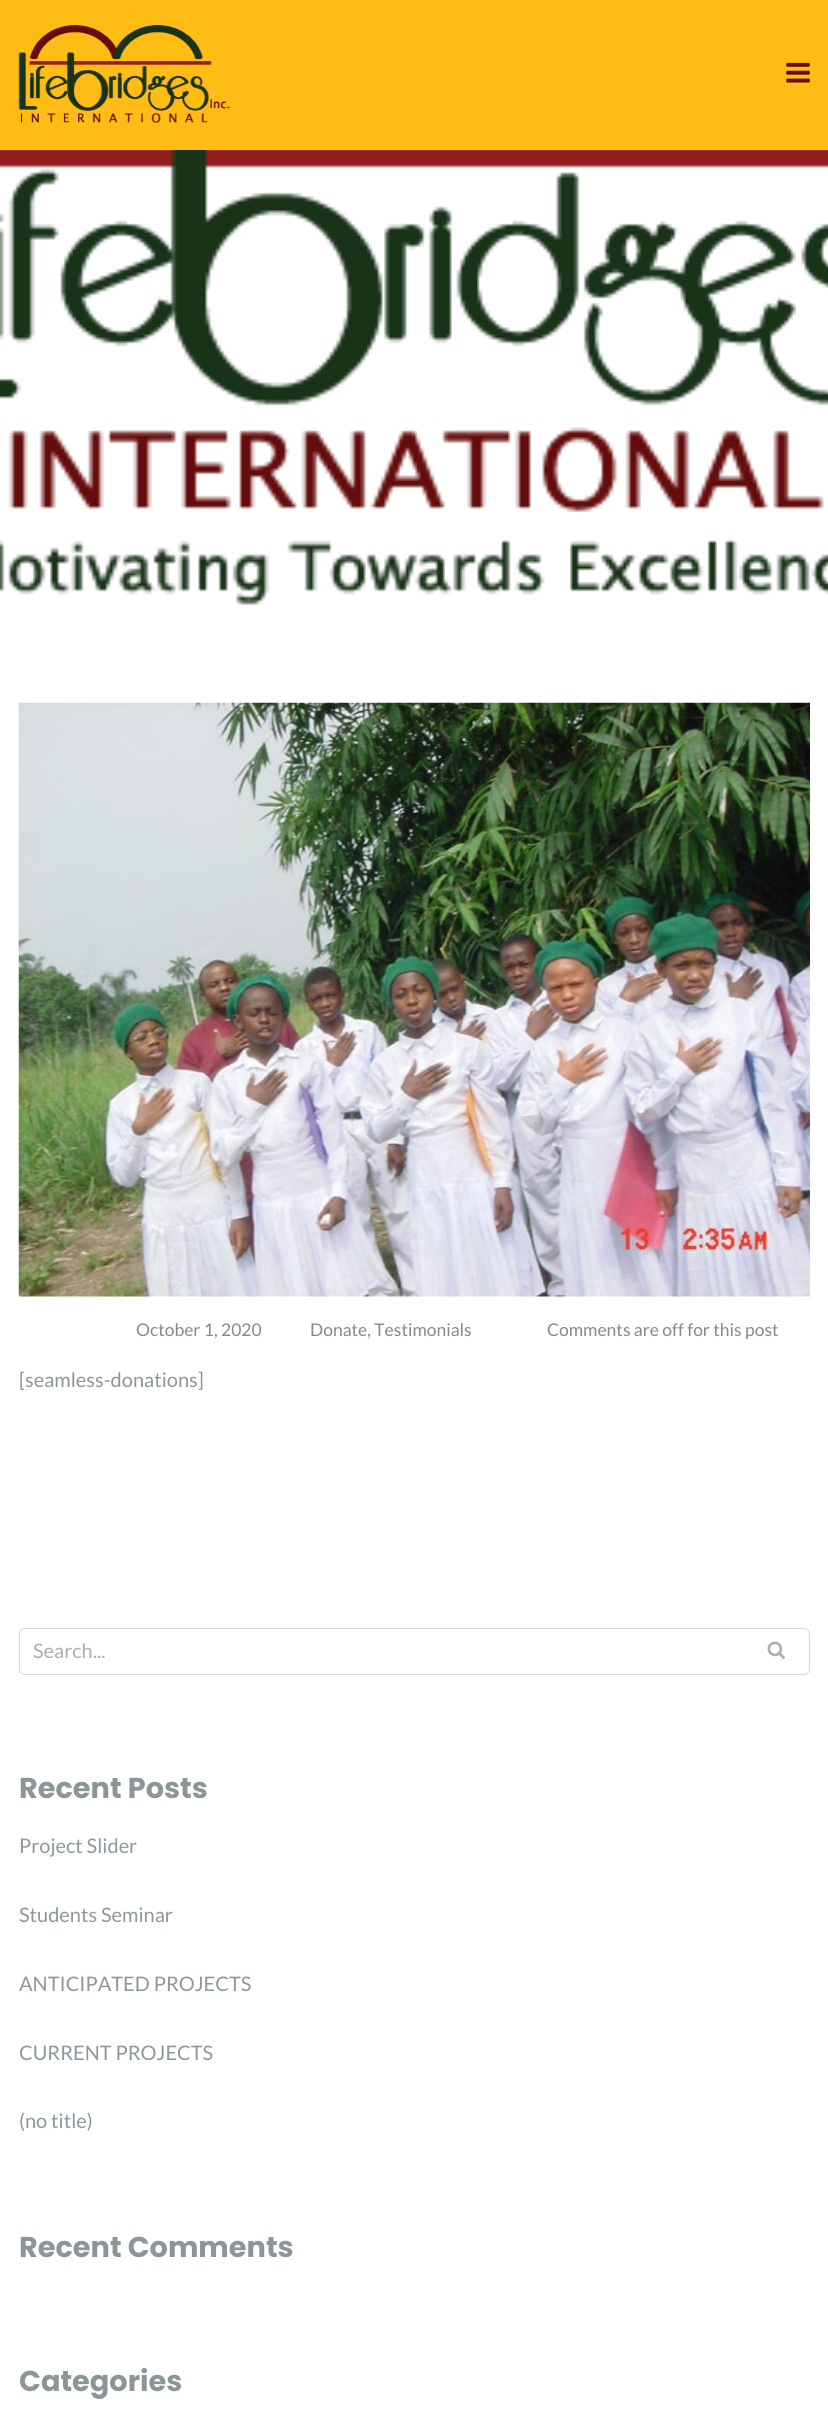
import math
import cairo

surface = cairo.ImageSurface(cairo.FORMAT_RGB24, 828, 2436)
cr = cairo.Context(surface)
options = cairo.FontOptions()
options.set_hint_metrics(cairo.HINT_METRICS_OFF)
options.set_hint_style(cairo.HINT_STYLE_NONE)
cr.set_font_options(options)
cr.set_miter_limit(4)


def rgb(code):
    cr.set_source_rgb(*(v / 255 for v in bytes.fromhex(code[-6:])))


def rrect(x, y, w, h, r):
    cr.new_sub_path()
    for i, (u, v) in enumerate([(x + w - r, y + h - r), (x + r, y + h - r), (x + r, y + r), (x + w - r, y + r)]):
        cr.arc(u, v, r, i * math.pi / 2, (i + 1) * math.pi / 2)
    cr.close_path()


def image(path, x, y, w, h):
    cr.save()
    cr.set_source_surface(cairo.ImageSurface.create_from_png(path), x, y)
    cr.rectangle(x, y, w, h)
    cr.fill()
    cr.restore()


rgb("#ffffff")
cr.paint()
image("img/1.png", 0, 150, 828, 455)
rgb("#ffbc14")
cr.rectangle(0, 0, 828, 150)
cr.fill()
image("img/2.png", 18, 25, 212, 98)
image("img/3.png", 786, 62, 24, 21)
image("img/4.png", 18, 702, 792, 595)
rrect(19.5, 1628.5, 790, 46, 5.5)
rgb("#d7d7d7")
cr.set_line_width(1)
cr.stroke()
image("img/5.png", 767, 1641, 18, 18)
cr.select_font_face("Lato")
cr.set_font_size(17.5)
rgb("#888888")
for x, y, s in [
    (136, 1336, "October 1, 2020"),
    (310, 1336, "Donate, Testimonials"),
    (547, 1336, "Comments are off for this post"),
]:
    cr.move_to(x, y)
    cr.show_text(s)
cr.set_font_size(20)
rgb("#8c9597")
cr.move_to(19, 1387)
cr.show_text("[seamless-donations]")
rgb("#a9afb1")
cr.move_to(33, 1658)
cr.show_text("Search...")
cr.select_font_face("Poppins", cairo.FONT_SLANT_NORMAL, cairo.FONT_WEIGHT_BOLD)
cr.set_font_size(28.75)
rgb("#8c9597")
cr.move_to(19, 1798)
cr.show_text("Recent Posts")
cr.select_font_face("Lato")
cr.set_font_size(20)
rgb("#8c979e")
for x, y, s in [
    (19, 1853, "Project Slider"),
    (19, 1922, "Students Seminar"),
    (19, 1991, "ANTICIPATED PROJECTS"),
    (19, 2060, "CURRENT PROJECTS"),
    (19, 2128, "(no title)"),
]:
    cr.move_to(x, y)
    cr.show_text(s)
cr.select_font_face("Poppins", cairo.FONT_SLANT_NORMAL, cairo.FONT_WEIGHT_BOLD)
cr.set_font_size(28.75)
rgb("#8c9597")
cr.move_to(19, 2257)
cr.show_text("Recent Comments")
cr.move_to(19, 2391)
cr.show_text("Categories")
surface.write_to_png("page.png")
